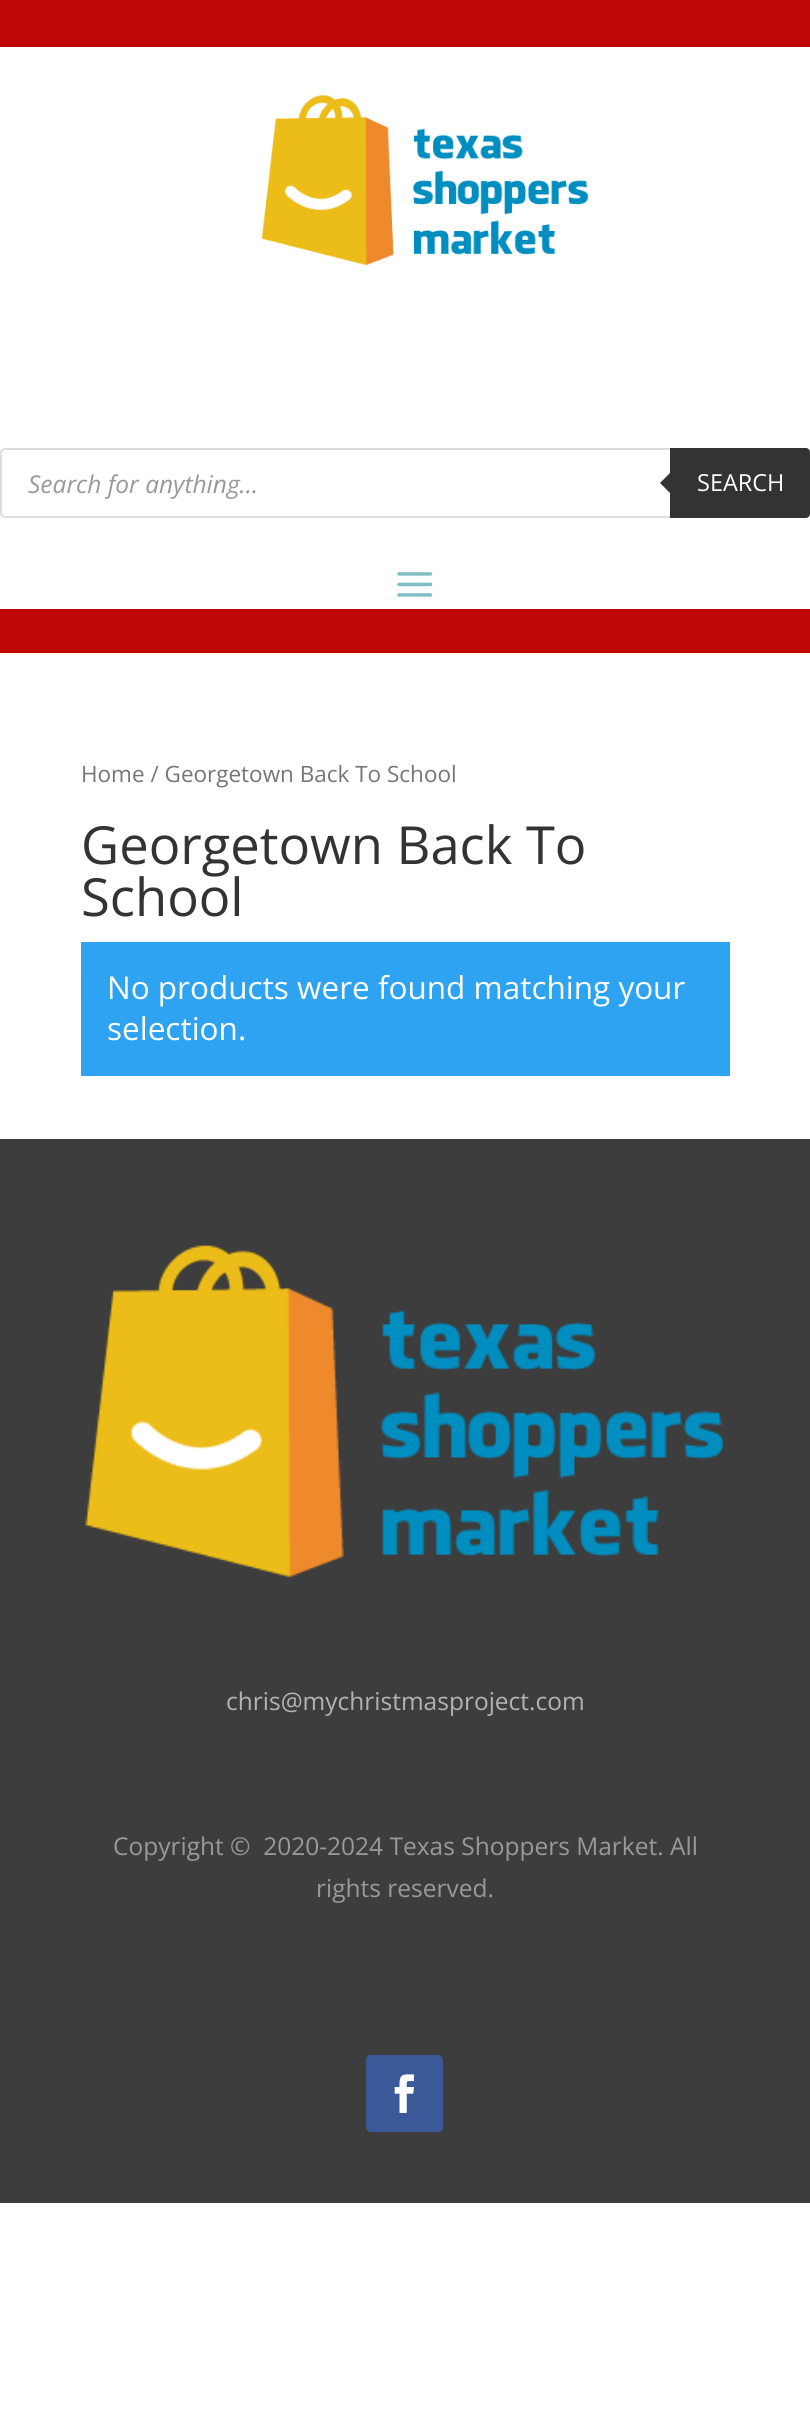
import math
import cairo

surface = cairo.ImageSurface(cairo.FORMAT_RGB24, 810, 2419)
cr = cairo.Context(surface)
options = cairo.FontOptions()
options.set_hint_metrics(cairo.HINT_METRICS_OFF)
options.set_hint_style(cairo.HINT_STYLE_NONE)
cr.set_font_options(options)
cr.set_miter_limit(4)


def rgb(code):
    cr.set_source_rgb(*(v / 255 for v in bytes.fromhex(code[-6:])))


def rrect(x, y, w, h, r):
    cr.new_sub_path()
    for i, (u, v) in enumerate([(x + w - r, y + h - r), (x + r, y + h - r), (x + r, y + r), (x + w - r, y + r)]):
        cr.arc(u, v, r, i * math.pi / 2, (i + 1) * math.pi / 2)
    cr.close_path()


def image(path, x, y, w, h):
    cr.save()
    cr.set_source_surface(cairo.ImageSurface.create_from_png(path), x, y)
    cr.rectangle(x, y, w, h)
    cr.fill()
    cr.restore()


rgb("#ffffff")
cr.paint()
rgb("#c10606")
cr.rectangle(0, 0, 810, 653)
cr.fill()
rgb("#ffffff")
cr.rectangle(0, 47, 810, 562)
cr.fill()
image("img/1.png", 261, 95, 327, 171)
rrect(1, 449, 808, 68, 4)
rgb("#dddddd")
cr.stroke()
rgb("#333333")
cr.new_path()
cr.move_to(670, 448)
cr.line_to(806, 448)
cr.curve_to(808, 448, 810, 450, 810, 452)
cr.line_to(810, 514)
cr.curve_to(810, 516, 808, 518, 806, 518)
cr.line_to(670, 518)
cr.close_path()
cr.fill()
cr.new_path()
cr.move_to(674, 469)
cr.line_to(674, 497)
cr.line_to(660, 483)
cr.close_path()
cr.fill()
image("img/2.png", 397, 572, 36, 25)
rgb("#2ea3f2")
cr.rectangle(81, 942, 649, 134)
cr.fill()
rgb("#3d3d3d")
cr.rectangle(0, 1139, 810, 1064)
cr.fill()
image("img/3.png", 85, 1245, 639, 333)
rgb("#3b5998")
rrect(366, 2055, 77, 77, 5)
cr.fill()
image("img/4.png", 394, 2074, 20, 39)
cr.select_font_face("Open Sans", cairo.FONT_SLANT_ITALIC)
cr.set_font_size(24.5)
rgb("#999999")
cr.move_to(28, 493)
cr.show_text("Search for anything...")
cr.select_font_face("Open Sans")
cr.set_font_size(23.5)
rgb("#ffffff")
cr.move_to(697, 491)
cr.show_text("SEARCH")
cr.set_font_size(22.5)
rgb("#767676")
cr.move_to(81, 782)
cr.show_text("Home / Georgetown Back To School")
cr.set_font_size(52.5)
rgb("#333333")
cr.move_to(81, 864)
cr.show_text("Georgetown Back To")
cr.move_to(81, 916)
cr.show_text("School")
cr.set_font_size(31.5)
rgb("#ffffff")
cr.move_to(107, 999)
cr.show_text("No products were found matching your")
cr.move_to(107, 1040)
cr.show_text("selection.")
cr.set_font_size(24.5)
rgb("#b3b3b3")
cr.move_to(226, 1710)
cr.show_text("chris@mychristmasproject.com")
rgb("#999999")
cr.move_to(113, 1855)
cr.show_text("Copyright ©  2020-2024 Texas Shoppers Market. All")
cr.move_to(316, 1897)
cr.show_text("rights reserved.")
surface.write_to_png("page.png")
